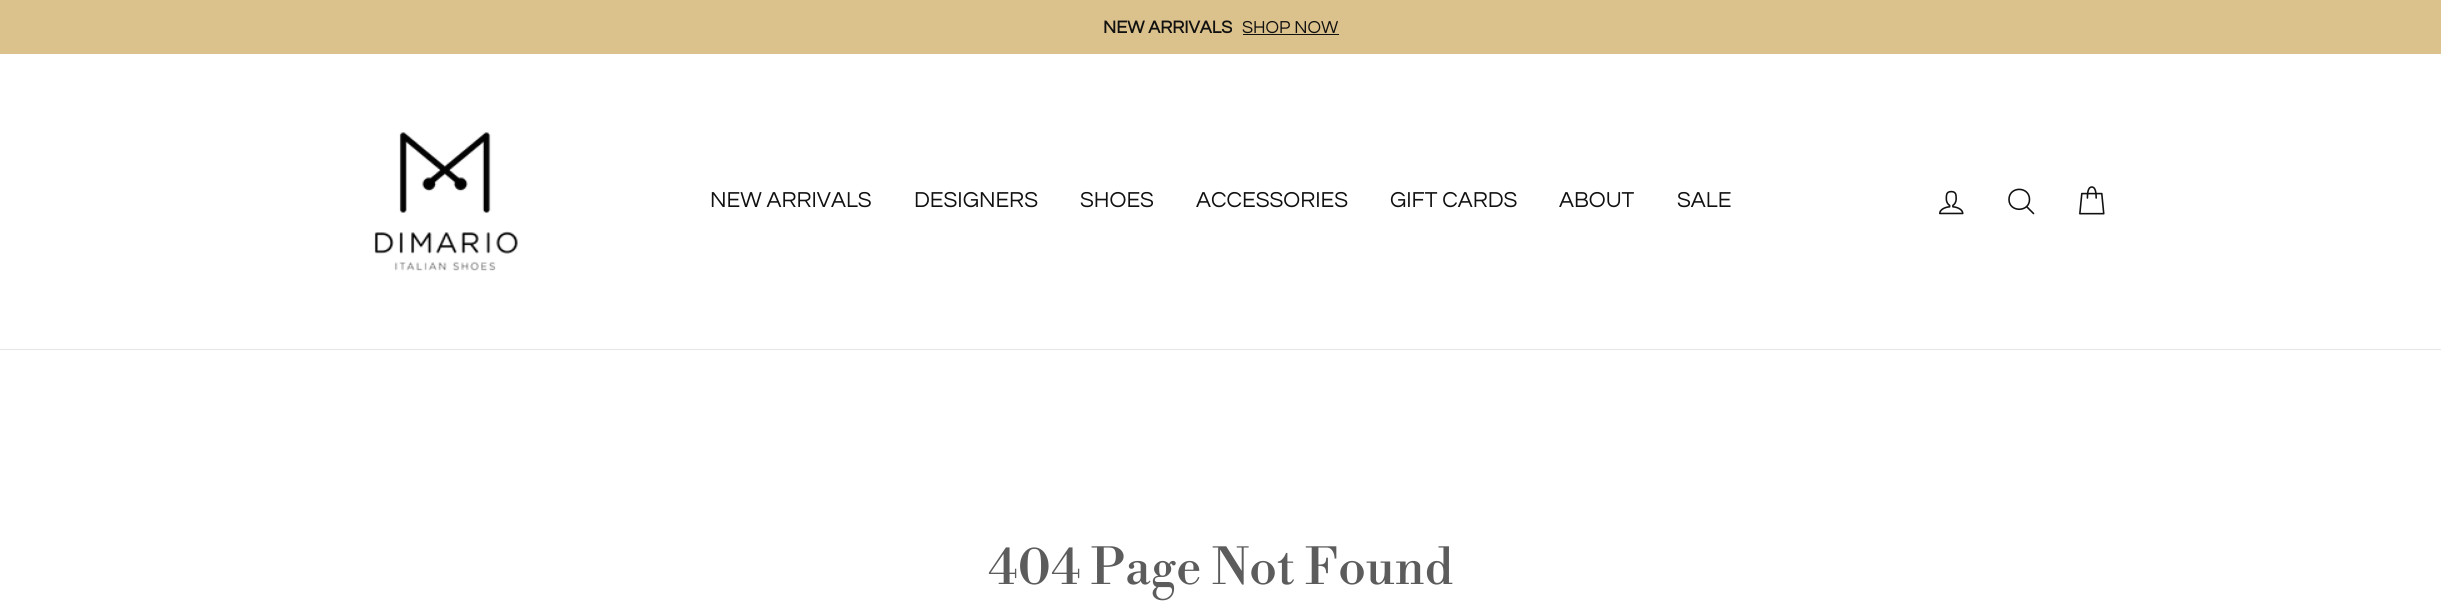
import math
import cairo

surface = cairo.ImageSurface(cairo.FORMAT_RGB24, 2441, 615)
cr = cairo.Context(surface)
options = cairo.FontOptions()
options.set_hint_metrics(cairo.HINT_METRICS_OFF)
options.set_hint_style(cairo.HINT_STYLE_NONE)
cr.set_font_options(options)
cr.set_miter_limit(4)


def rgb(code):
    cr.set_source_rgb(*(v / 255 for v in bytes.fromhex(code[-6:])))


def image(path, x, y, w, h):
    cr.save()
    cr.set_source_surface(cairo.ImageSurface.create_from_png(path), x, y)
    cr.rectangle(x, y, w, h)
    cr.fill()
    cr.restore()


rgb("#ffffff")
cr.paint()
for x, y, w, h, color in [
    (0, 0, 2441, 54, "#dbc18b"),
    (1243, 34, 96, 1, "#111111"),
    (0, 349, 2441, 1, "#e6e6e6"),
]:
    rgb(color)
    cr.rectangle(x, y, w, h)
    cr.fill()
image("img/1.png", 374, 132, 144, 139)
image("img/2.png", 1939, 190, 25, 25)
cr.new_path()
cr.move_to(2029.5, 199.5)
cr.curve_to(2029.5, 212.5, 2009, 212.5, 2009, 199.5)
cr.curve_to(2009, 186, 2029.5, 186, 2029.5, 199.5)
cr.close_path()
cr.move_to(2033.5, 213.5)
cr.line_to(2026.5, 206.5)
rgb("#111111")
cr.set_line_width(1.6)
cr.set_line_cap(cairo.LINE_CAP_ROUND)
cr.set_line_join(cairo.LINE_JOIN_ROUND)
cr.stroke()
image("img/3.png", 2079, 186, 26, 29)
cr.select_font_face("Questrial", cairo.FONT_SLANT_NORMAL, cairo.FONT_WEIGHT_BOLD)
cr.set_font_size(18)
cr.move_to(1103, 33)
cr.show_text("NEW ARRIVALS")
cr.select_font_face("Questrial")
cr.move_to(1242, 33)
cr.show_text("SHOP NOW")
cr.set_font_size(22.5)
for x, y, s in [
    (710, 207, "NEW ARRIVALS"),
    (914, 207, "DESIGNERS"),
    (1080, 207, "SHOES"),
    (1196, 207, "ACCESSORIES"),
    (1390, 207, "GIFT CARDS"),
    (1559, 207, "ABOUT"),
    (1677, 207, "SALE"),
]:
    cr.move_to(x, y)
    cr.show_text(s)
cr.select_font_face("Libre Bodoni")
cr.set_font_size(50)
rgb("#5c5c5c")
cr.move_to(988, 584)
cr.show_text("404 Page Not Found")
surface.write_to_png("page.png")
